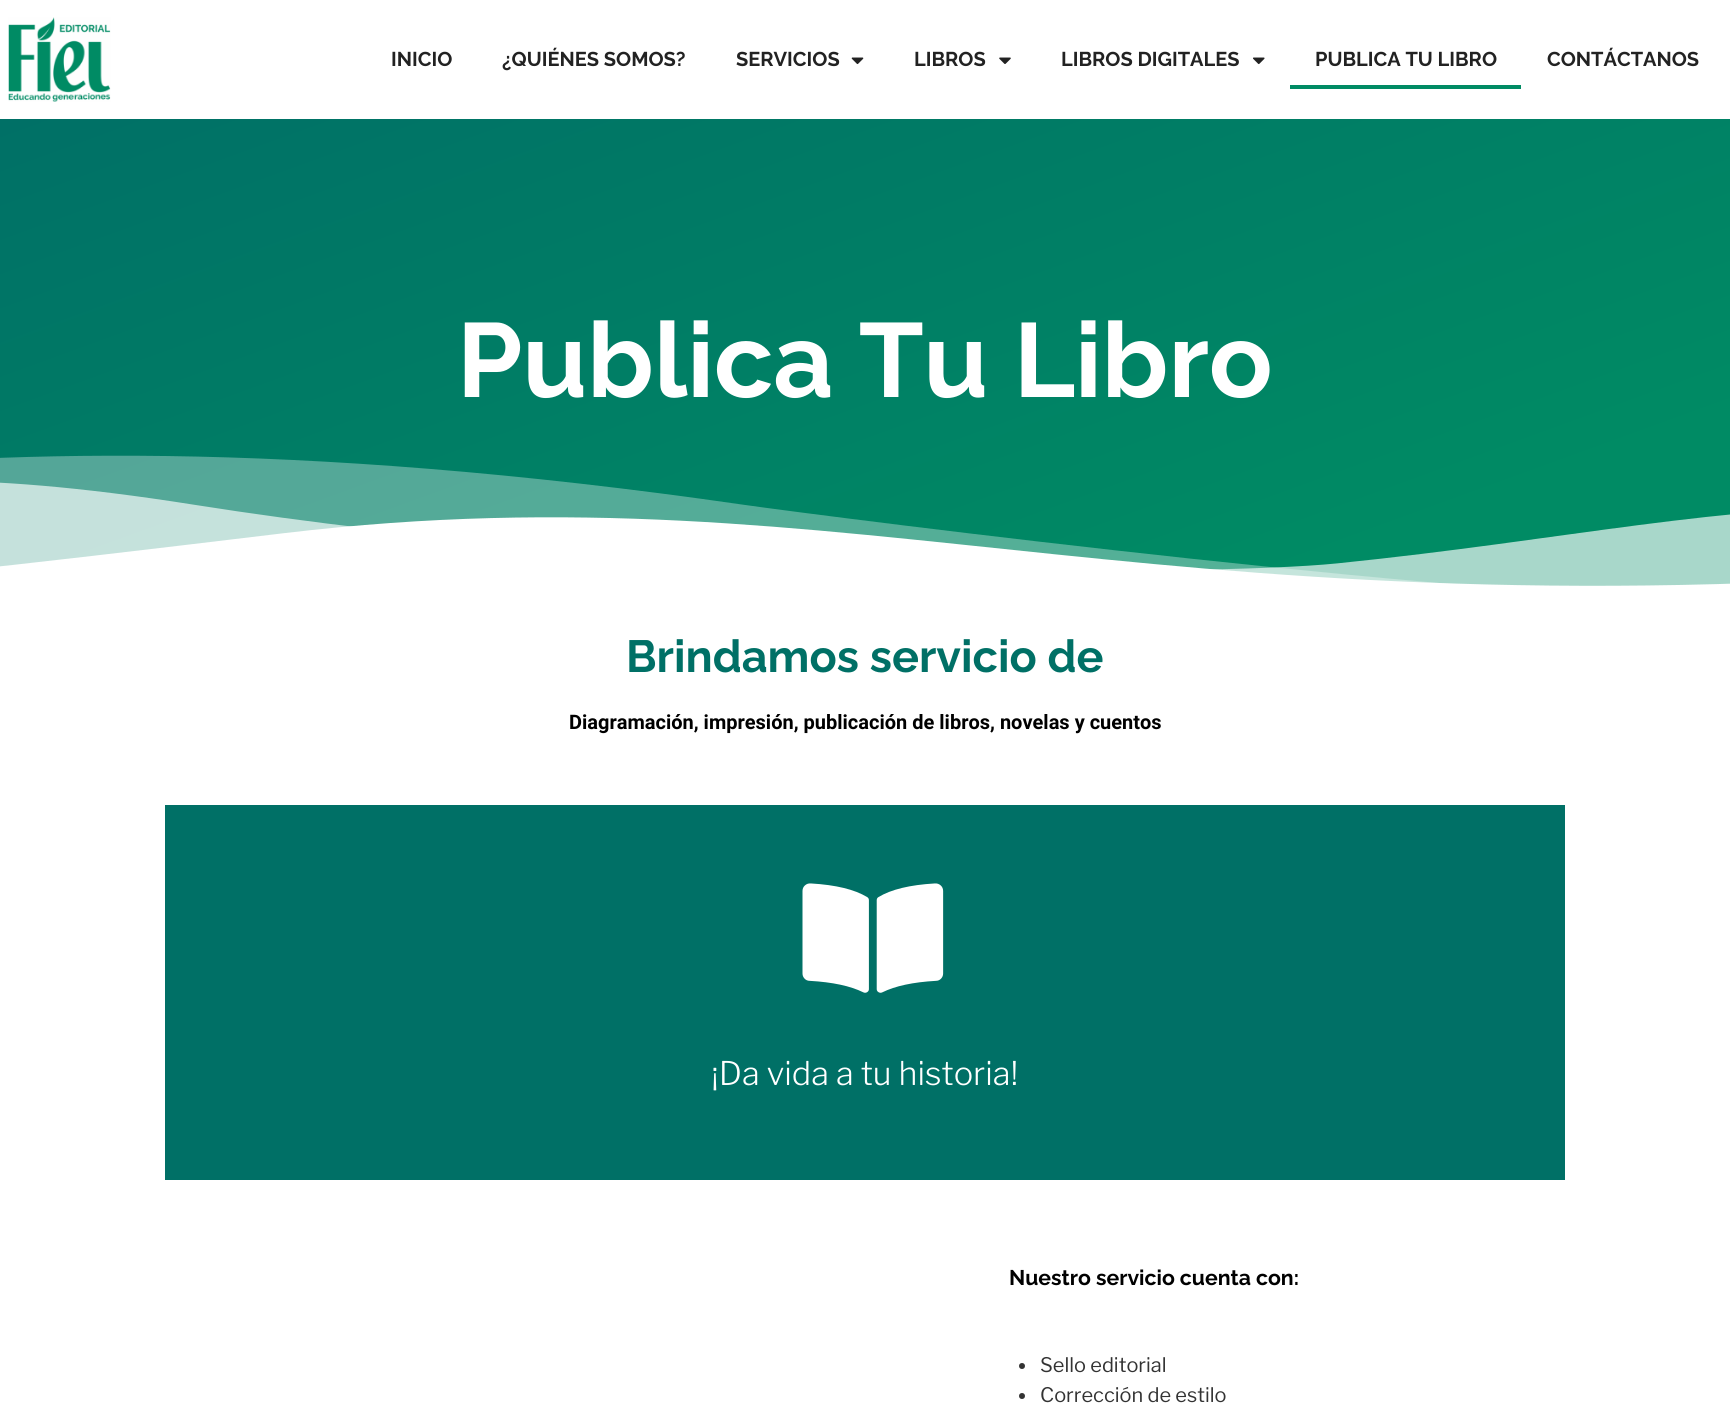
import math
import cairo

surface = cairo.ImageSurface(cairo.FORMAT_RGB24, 1730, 1422)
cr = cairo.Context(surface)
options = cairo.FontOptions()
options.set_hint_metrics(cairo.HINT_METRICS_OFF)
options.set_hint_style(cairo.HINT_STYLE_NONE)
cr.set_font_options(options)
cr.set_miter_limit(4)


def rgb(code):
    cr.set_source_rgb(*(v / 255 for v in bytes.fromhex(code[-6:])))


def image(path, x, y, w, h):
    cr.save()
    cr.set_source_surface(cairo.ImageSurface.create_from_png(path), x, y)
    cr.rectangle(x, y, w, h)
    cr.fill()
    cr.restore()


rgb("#ffffff")
cr.paint()
image("img/1.png", 8, 17, 103, 85)
image("img/2.png", 851, 57, 13, 8)
image("img/3.png", 999, 57, 12, 7)
image("img/4.png", 1253, 57, 12, 8)
rgb("#008b64")
cr.rectangle(1290, 85, 231, 4)
cr.fill()
gradient = cairo.LinearGradient(686, -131, 1044, 853)
gradient.add_color_stop_rgba(0, 0, 0.439, 0.4, 1)
gradient.add_color_stop_rgba(0.83, 0, 0.545, 0.392, 1)
cr.set_source(gradient)
cr.rectangle(0, 119, 1730, 467)
cr.fill()
image("img/5.png", 0, 455, 1730, 149)
rgb("#007066")
cr.rectangle(165, 805, 1400, 375)
cr.fill()
image("img/6.png", 802, 883, 142, 110)
rgb("#333333")
cr.arc(1022, 1366, 3, 0, 2 * math.pi)
cr.fill()
cr.arc(1022, 1396, 3, 0, 2 * math.pi)
cr.fill()
cr.select_font_face("Raleway Thin")
cr.set_font_size(20)
rgb("#222222")
for x, y, s in [
    (391, 66, "INICIO"),
    (502, 66, "¿QUIÉNES SOMOS?"),
    (736, 66, "SERVICIOS"),
    (914, 66, "LIBROS"),
    (1061, 66, "LIBROS DIGITALES"),
    (1315, 66, "PUBLICA TU LIBRO"),
    (1547, 66, "CONTÁCTANOS"),
]:
    cr.move_to(x, y)
    cr.show_text(s)
cr.set_font_size(105)
rgb("#ffffff")
cr.move_to(457, 397)
cr.show_text("Publica Tu Libro")
cr.set_font_size(45)
rgb("#007066")
cr.move_to(626, 672)
cr.show_text("Brindamos servicio de")
cr.select_font_face("Roboto", cairo.FONT_SLANT_NORMAL, cairo.FONT_WEIGHT_BOLD)
cr.set_font_size(20)
rgb("#000000")
cr.move_to(569, 729)
cr.show_text("Diagramación, impresión, publicación de libros, novelas y cuentos")
cr.select_font_face("Libre Franklin Thin")
cr.set_font_size(32.5)
rgb("#ffffff")
cr.move_to(711, 1085)
cr.show_text("¡Da vida a tu historia!")
cr.select_font_face("Raleway Thin")
cr.set_font_size(21.25)
rgb("#000000")
cr.move_to(1009, 1285)
cr.show_text("Nuestro servicio cuenta con:")
cr.select_font_face("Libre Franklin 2 Thin")
cr.set_font_size(20)
rgb("#333333")
cr.move_to(1040, 1372)
cr.show_text("Sello editorial")
cr.move_to(1040, 1402)
cr.show_text("Corrección de estilo")
surface.write_to_png("page.png")
